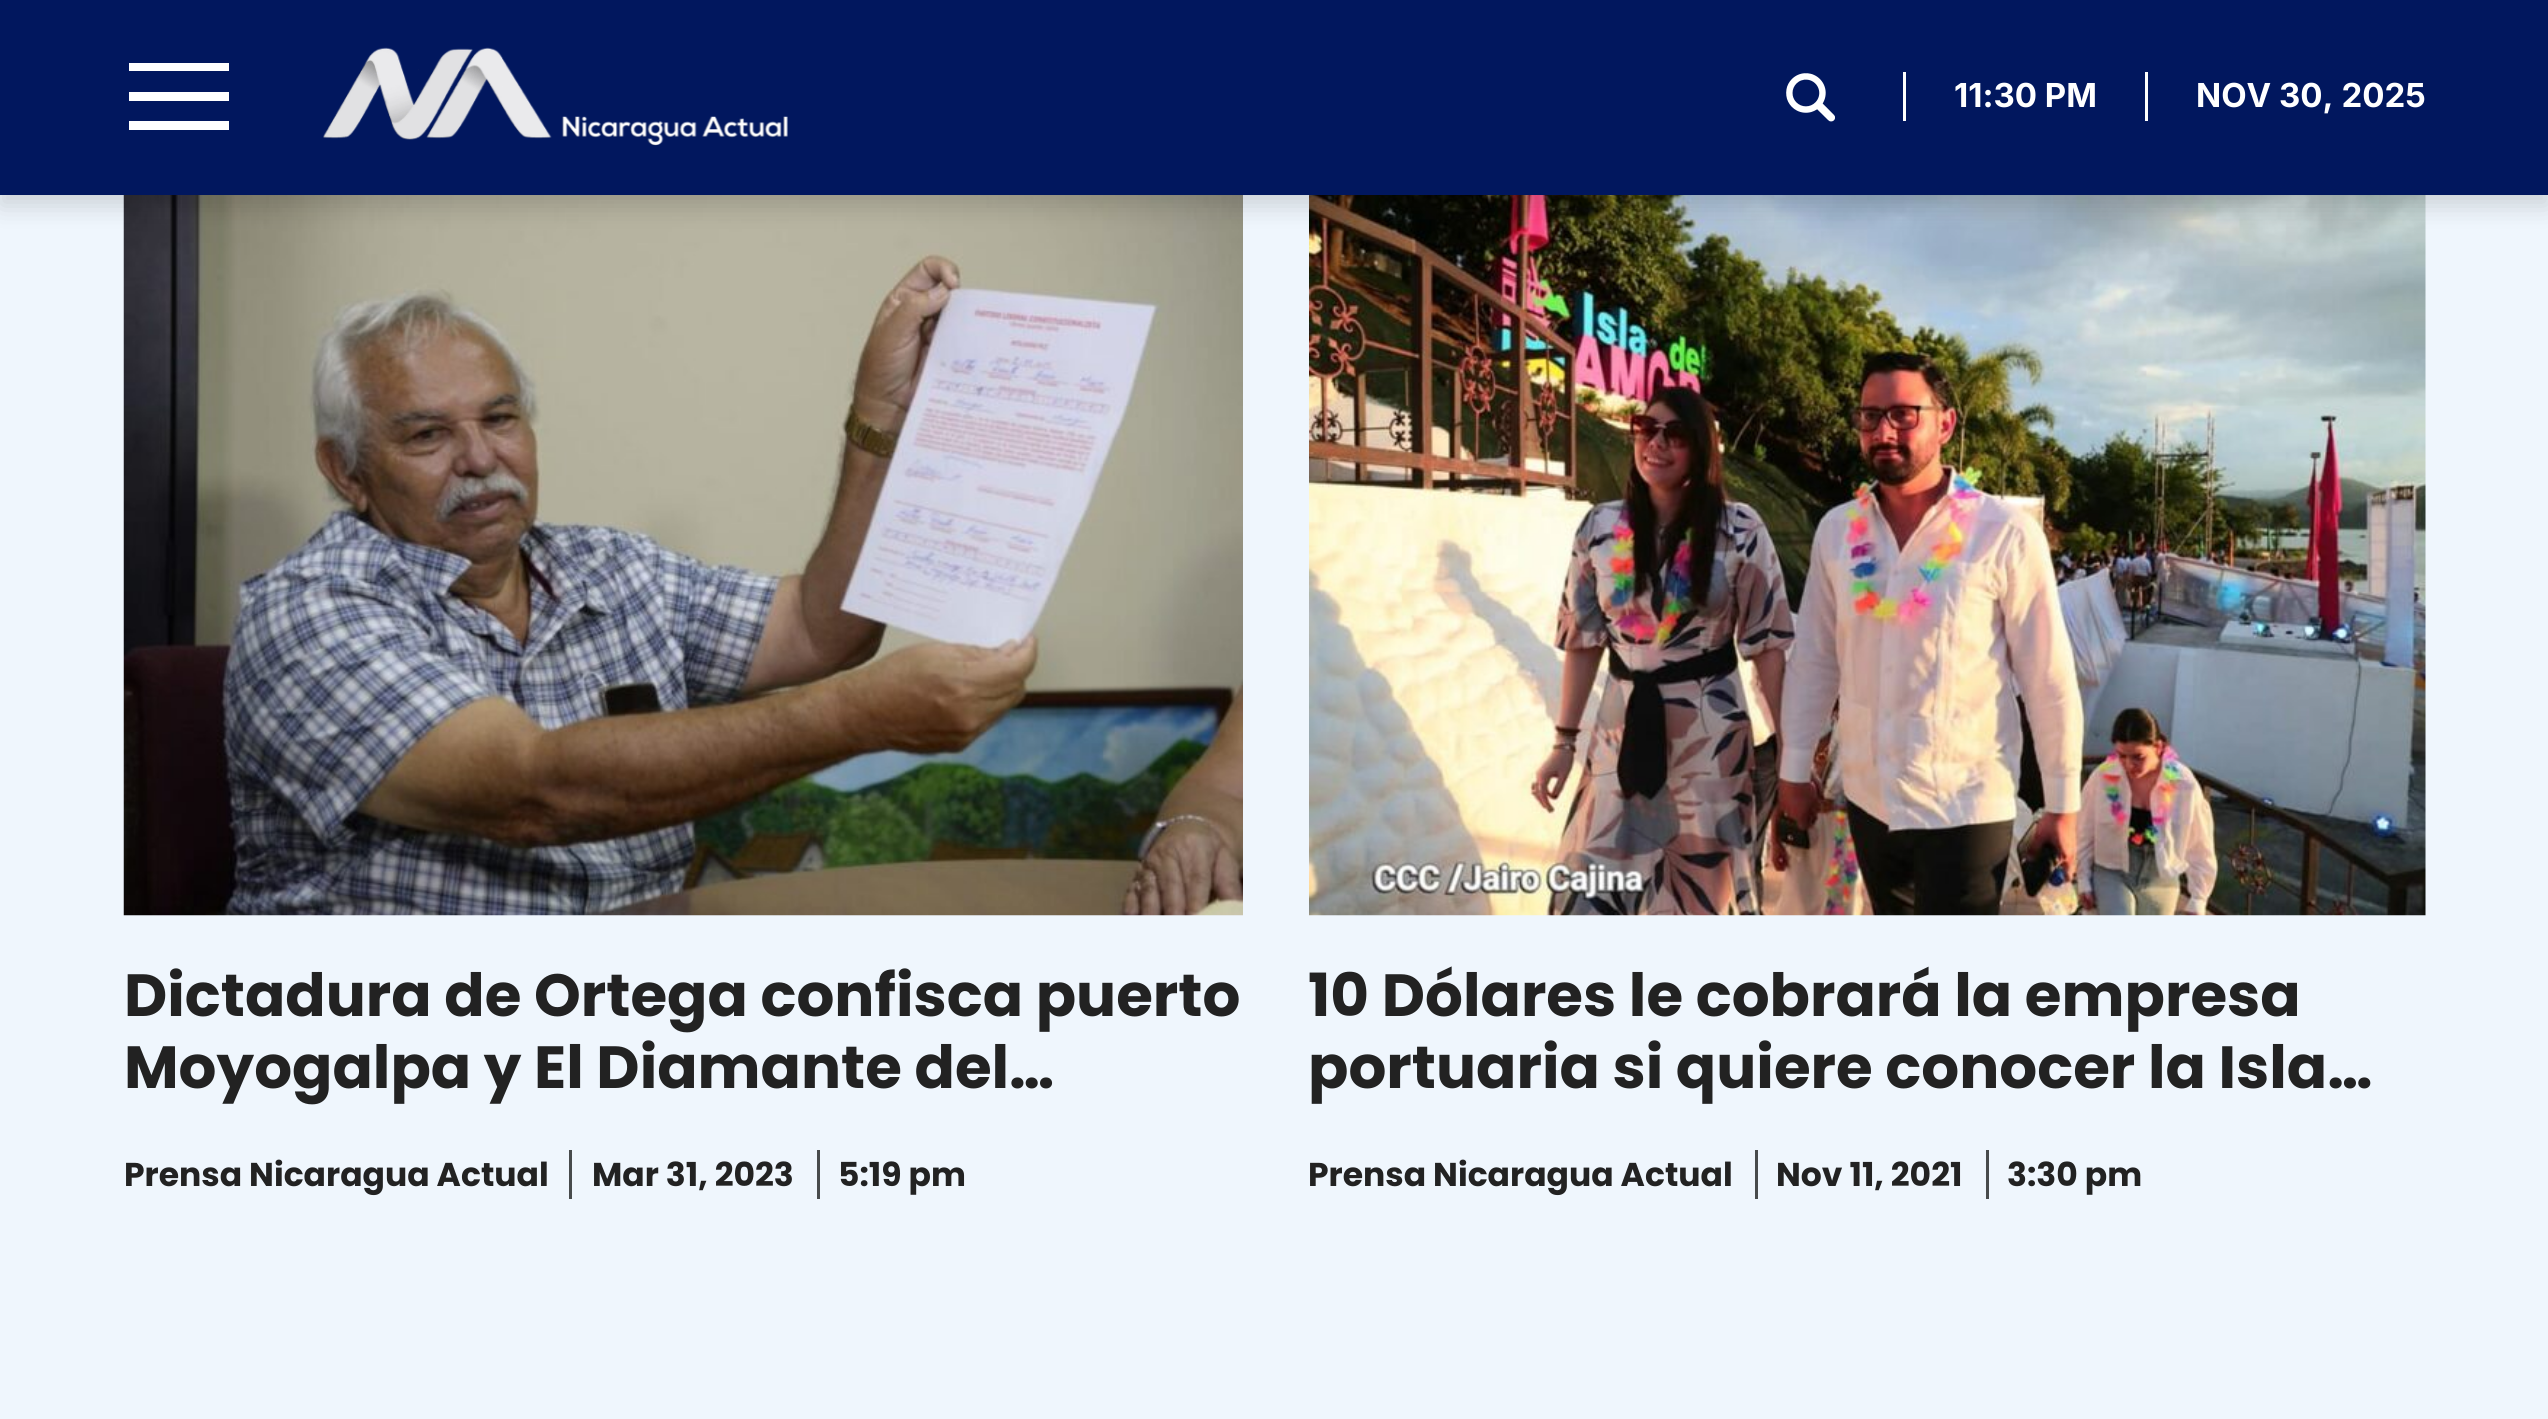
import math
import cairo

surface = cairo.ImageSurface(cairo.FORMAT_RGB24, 2548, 1419)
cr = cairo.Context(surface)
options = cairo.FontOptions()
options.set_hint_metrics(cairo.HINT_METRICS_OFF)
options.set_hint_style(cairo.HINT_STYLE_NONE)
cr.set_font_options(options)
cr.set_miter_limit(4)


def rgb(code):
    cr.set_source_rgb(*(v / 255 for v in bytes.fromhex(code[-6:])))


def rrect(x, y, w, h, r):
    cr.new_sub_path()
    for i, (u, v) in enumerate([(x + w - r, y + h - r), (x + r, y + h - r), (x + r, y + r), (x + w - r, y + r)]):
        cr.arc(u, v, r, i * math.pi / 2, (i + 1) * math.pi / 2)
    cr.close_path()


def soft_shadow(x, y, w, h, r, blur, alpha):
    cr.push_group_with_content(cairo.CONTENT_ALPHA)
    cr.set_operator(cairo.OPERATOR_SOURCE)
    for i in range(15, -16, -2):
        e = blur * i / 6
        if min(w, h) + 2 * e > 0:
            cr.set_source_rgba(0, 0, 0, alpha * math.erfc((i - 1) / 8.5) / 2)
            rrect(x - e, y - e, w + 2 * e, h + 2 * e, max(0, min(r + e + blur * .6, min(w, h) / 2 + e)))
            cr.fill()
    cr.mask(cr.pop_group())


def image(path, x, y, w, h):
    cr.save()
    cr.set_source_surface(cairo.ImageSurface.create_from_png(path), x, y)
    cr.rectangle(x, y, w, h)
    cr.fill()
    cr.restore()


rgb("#eff6fd")
cr.paint()
image("img/3.png", 123, 195, 1120, 721)
image("img/4.png", 1309, 195, 1117, 721)
rgb("#000000")
soft_shadow(0, 8, 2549, 198, 0, 12.5, 0.15)
rgb("#01175e")
cr.rectangle(0, 0, 2548, 195)
cr.fill()
rgb("#ffffff")
cr.new_path()
cr.move_to(129, 63)
cr.line_to(229, 63)
cr.line_to(229, 71)
cr.line_to(129, 71)
cr.close_path()
cr.move_to(129, 92)
cr.line_to(229, 92)
cr.line_to(229, 101)
cr.line_to(129, 101)
cr.close_path()
cr.move_to(129, 121)
cr.line_to(229, 121)
cr.line_to(229, 130)
cr.line_to(129, 130)
cr.close_path()
cr.fill()
image("img/1.png", 323, 47, 465, 99)
image("img/2.png", 1786, 73, 49, 49)
for x, y, w, h, color in [
    (1903, 72, 3, 49, "#ffffff"),
    (2145, 72, 3, 49, "#ffffff"),
    (569, 1150, 3, 49, "#484b4c"),
    (817, 1150, 3, 49, "#484b4c"),
    (1755, 1150, 3, 49, "#484b4c"),
    (1986, 1150, 3, 49, "#484b4c"),
]:
    rgb(color)
    cr.rectangle(x, y, w, h)
    cr.fill()
cr.select_font_face("Inter", cairo.FONT_SLANT_NORMAL, cairo.FONT_WEIGHT_BOLD)
cr.set_font_size(33)
rgb("#ffffff")
cr.move_to(1954, 107)
cr.show_text("11:30 PM")
cr.move_to(2196, 107)
cr.show_text("NOV 30, 2025")
cr.select_font_face("Poppins", cairo.FONT_SLANT_NORMAL, cairo.FONT_WEIGHT_BOLD)
cr.set_font_size(59.5)
rgb("#222222")
cr.move_to(124, 1016)
cr.show_text("Dictadura de Ortega confisca puerto")
cr.move_to(124, 1088)
cr.show_text("Moyogalpa y El Diamante del…")
cr.set_font_size(33)
for x, y, s in [
    (124, 1186, "Prensa Nicaragua Actual"),
    (592, 1186, "Mar 31, 2023"),
    (838, 1186, "5:19 pm"),
]:
    cr.move_to(x, y)
    cr.show_text(s)
cr.set_font_size(59.5)
cr.move_to(1308, 1016)
cr.show_text("10 Dólares le cobrará la empresa")
cr.move_to(1308, 1088)
cr.show_text("portuaria si quiere conocer la Isla…")
cr.set_font_size(33)
for x, y, s in [
    (1308, 1186, "Prensa Nicaragua Actual"),
    (1776, 1186, "Nov 11, 2021"),
    (2007, 1186, "3:30 pm"),
]:
    cr.move_to(x, y)
    cr.show_text(s)
surface.write_to_png("page.png")
